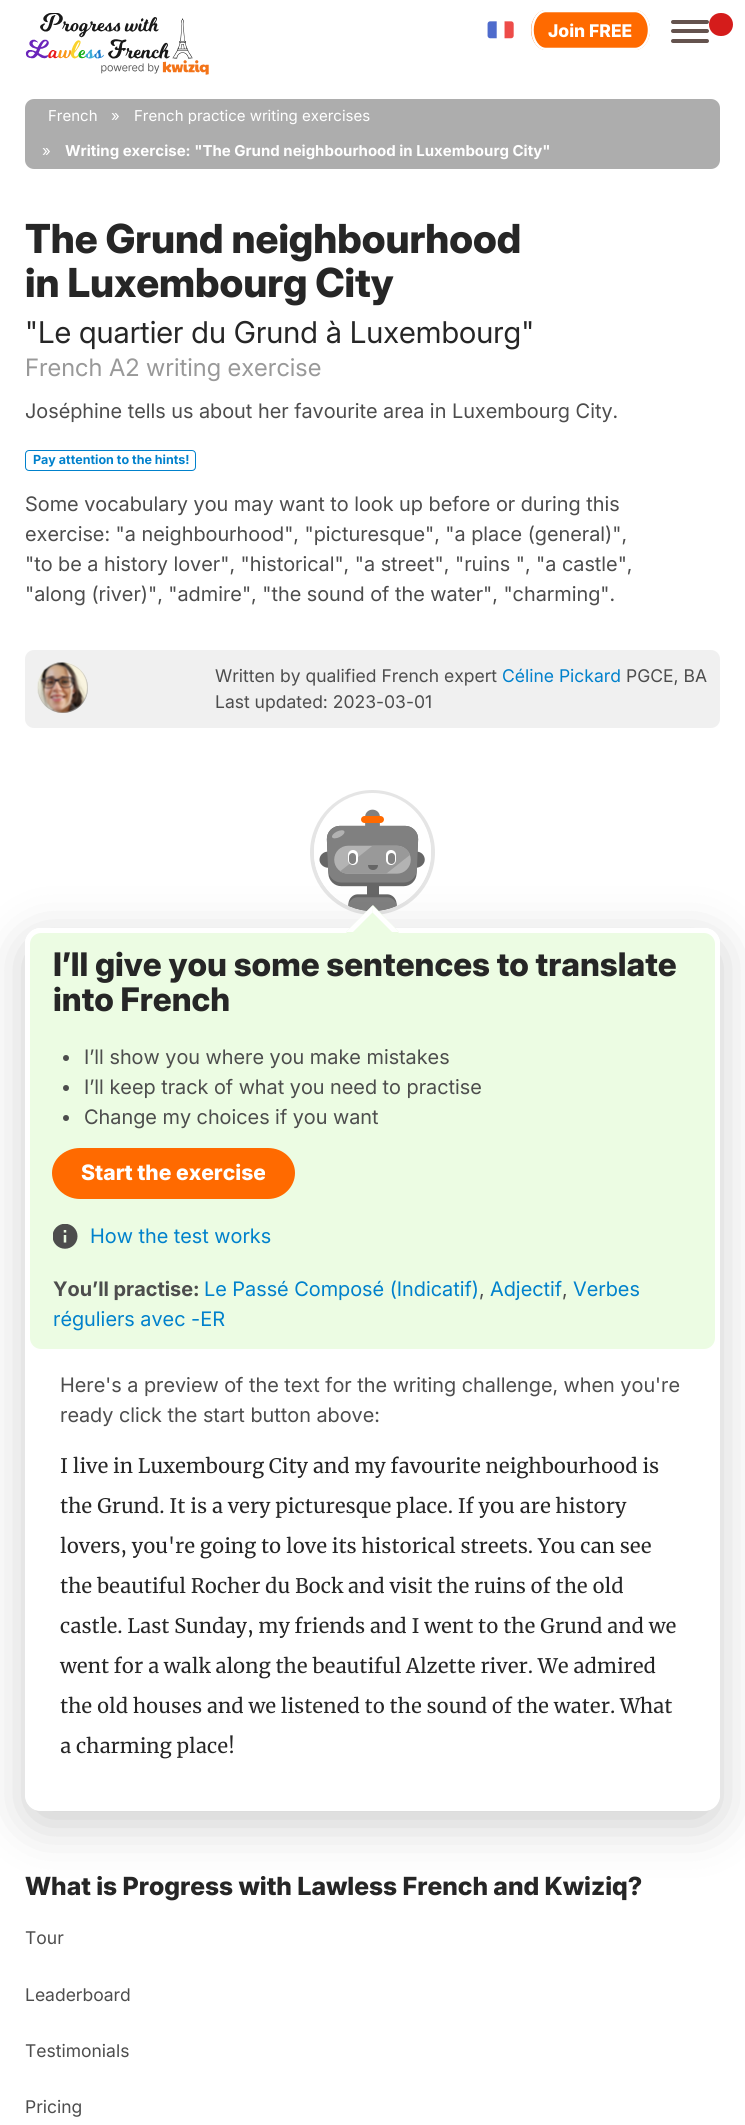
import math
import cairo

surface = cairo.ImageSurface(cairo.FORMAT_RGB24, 745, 2125)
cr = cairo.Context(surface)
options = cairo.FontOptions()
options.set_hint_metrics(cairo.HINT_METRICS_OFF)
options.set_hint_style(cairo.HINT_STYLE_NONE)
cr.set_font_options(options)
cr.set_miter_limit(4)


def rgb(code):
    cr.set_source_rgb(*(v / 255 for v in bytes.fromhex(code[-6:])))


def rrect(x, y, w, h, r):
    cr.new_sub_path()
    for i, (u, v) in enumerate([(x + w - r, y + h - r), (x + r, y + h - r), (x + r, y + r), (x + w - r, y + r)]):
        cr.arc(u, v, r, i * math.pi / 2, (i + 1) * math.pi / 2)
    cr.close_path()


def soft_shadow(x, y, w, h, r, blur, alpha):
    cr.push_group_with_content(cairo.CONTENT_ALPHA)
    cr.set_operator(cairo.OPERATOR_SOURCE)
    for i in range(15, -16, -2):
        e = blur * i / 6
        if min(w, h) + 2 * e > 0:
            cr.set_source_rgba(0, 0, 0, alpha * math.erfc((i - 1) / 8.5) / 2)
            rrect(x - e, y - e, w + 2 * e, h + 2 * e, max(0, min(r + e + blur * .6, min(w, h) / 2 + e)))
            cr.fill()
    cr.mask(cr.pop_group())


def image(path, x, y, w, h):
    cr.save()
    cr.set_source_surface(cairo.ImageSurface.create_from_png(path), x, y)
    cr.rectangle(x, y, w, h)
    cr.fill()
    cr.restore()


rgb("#ffffff")
cr.paint()
image("img/1.png", 25, 13, 184, 62)
image("img/2.png", 487, 21, 27, 18)
rgb("#ff6a00")
cr.new_path()
cr.move_to(546, 10)
cr.line_to(635, 10)
cr.curve_to(643, 10, 650, 19, 650, 30)
cr.curve_to(650, 41, 643, 50, 635, 50)
cr.line_to(546, 50)
cr.curve_to(538, 50, 531, 41, 531, 30)
cr.curve_to(531, 19, 538, 10, 546, 10)
cr.close_path()
cr.fill()
cr.new_path()
cr.move_to(546, 11)
cr.line_to(635, 11)
cr.curve_to(642.5, 11, 649, 19.5, 649, 30)
cr.curve_to(649, 40.5, 642.5, 49, 635, 49)
cr.line_to(546, 49)
cr.curve_to(538.5, 49, 532.5, 40.5, 532.5, 30)
cr.curve_to(532.5, 19.5, 538.5, 11, 546, 11)
cr.close_path()
rgb("#ffffff")
cr.set_line_width(2.5)
cr.stroke()
rgb("#64534e")
rrect(671, 20, 38, 4, 2)
cr.fill()
rrect(671, 29, 38, 4, 2)
cr.fill()
rrect(671, 39, 38, 4, 2)
cr.fill()
rgb("#d51c1b")
rrect(709, 13, 24, 23, 11.5)
cr.fill()
rgb("#adadad")
rrect(25, 99, 695, 70, 9)
cr.fill()
rrect(25.5, 450.5, 170, 20, 3.5)
rgb("#0081cc")
cr.set_line_width(1)
cr.stroke()
rgb("#f0f0f0")
rrect(25, 650, 695, 78, 9)
cr.fill()
rgb("#a5a5a5")
cr.arc(63, 688, 25, 0, 2 * math.pi)
cr.fill()
image("img/3.png", 37, 662, 51, 51)
cr.arc(372.5, 852.5, 60.5, 0, 2 * math.pi)
rgb("#e5e5e5")
cr.set_line_width(4)
cr.stroke()
rgb("#ffffff")
rrect(314, 793, 117, 118, 58.5)
cr.fill()
image("img/4.png", 319, 809, 106, 102)
rgb("#ff6a00")
rrect(361, 816, 23, 7, 3.5)
cr.fill()
rgb("#ffffff")
rrect(348, 850, 10, 15, 5)
cr.fill()
rgb("#808080")
rrect(349, 853, 7, 11, 3.5)
cr.fill()
rgb("#ffffff")
rrect(386, 850, 10, 15, 5)
cr.fill()
rgb("#808080")
rrect(388, 853, 7, 11, 3.5)
cr.fill()
rgb("#666666")
cr.new_path()
cr.move_to(368, 865)
cr.line_to(378, 865)
cr.curve_to(378, 868, 376, 870, 373, 870)
cr.curve_to(370, 870, 368, 868, 368, 865)
cr.close_path()
cr.fill()
cr.save()
cr.set_fill_rule(cairo.FILL_RULE_EVEN_ODD)
cr.new_path()
cr.move_to(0, 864)
cr.line_to(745, 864)
cr.line_to(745, 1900)
cr.line_to(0, 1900)
cr.close_path()
cr.move_to(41, 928)
cr.line_to(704, 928)
cr.curve_to(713, 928, 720, 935, 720, 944)
cr.line_to(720, 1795)
cr.curve_to(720, 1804, 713, 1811, 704, 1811)
cr.line_to(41, 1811)
cr.curve_to(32, 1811, 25, 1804, 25, 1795)
cr.line_to(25, 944)
cr.curve_to(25, 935, 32, 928, 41, 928)
cr.close_path()
cr.clip()
rgb("#000000")
soft_shadow(25, 940, 695, 884, 16, 25, 0.2)
cr.restore()
rgb("#ecfce3")
rrect(27.5, 930.5, 690, 421, 13.5)
cr.fill_preserve()
rgb("#ffffff")
cr.set_line_width(5)
cr.stroke()
rgb("#ecfce3")
cr.new_path()
cr.move_to(399, 932)
cr.line_to(373, 958)
cr.line_to(346, 932)
cr.line_to(373, 905)
cr.close_path()
cr.fill()
rgb("#ffffff")
cr.new_path()
cr.move_to(346, 932)
cr.line_to(372.5, 905.5)
cr.line_to(372.5, 912.5)
cr.line_to(353, 932)
cr.close_path()
cr.fill()
cr.new_path()
cr.move_to(372.5, 905.5)
cr.line_to(399, 932)
cr.line_to(392, 932)
cr.line_to(372.5, 912.5)
cr.close_path()
cr.fill()
rgb("#4d4d4d")
cr.arc(66, 1058, 3, 0, 2 * math.pi)
cr.fill()
cr.arc(66, 1088, 3, 0, 2 * math.pi)
cr.fill()
cr.arc(66, 1118, 3, 0, 2 * math.pi)
cr.fill()
rgb("#ff6a00")
cr.new_path()
cr.move_to(80, 1148)
cr.line_to(268, 1148)
cr.curve_to(283, 1148, 295, 1159, 295, 1173)
cr.curve_to(295, 1187, 283, 1199, 268, 1199)
cr.line_to(80, 1199)
cr.curve_to(65, 1199, 52, 1187, 52, 1173)
cr.curve_to(52, 1159, 65, 1148, 80, 1148)
cr.close_path()
cr.fill()
image("img/5.png", 53, 1224, 25, 25)
cr.select_font_face("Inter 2 ExtraBold")
cr.set_font_size(17.5)
rgb("#ffffff")
cr.move_to(548, 37)
cr.show_text("Join FREE")
cr.select_font_face("Inter")
cr.set_font_size(15)
for x, y, s in [
    (134, 121, "French practice writing exercises"),
    (42, 156, "»"),
    (48, 121, "French"),
    (111, 121, "»"),
]:
    cr.move_to(x, y)
    cr.show_text(s)
cr.select_font_face("Inter", cairo.FONT_SLANT_NORMAL, cairo.FONT_WEIGHT_BOLD)
cr.move_to(65, 156)
cr.show_text("Writing exercise: \"The Grund neighbourhood in Luxembourg City\"")
cr.select_font_face("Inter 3 ExtraBold")
cr.set_font_size(40)
rgb("#262626")
cr.move_to(25, 253)
cr.show_text("The Grund neighbourhood")
cr.move_to(25, 297)
cr.show_text("in Luxembourg City")
cr.select_font_face("Inter 2")
cr.set_font_size(30)
cr.move_to(25, 343)
cr.show_text("\"Le quartier du Grund à Luxembourg\"")
cr.select_font_face("Inter 3")
cr.set_font_size(24)
rgb("#999999")
cr.move_to(25, 376)
cr.show_text("French A2 writing exercise")
cr.select_font_face("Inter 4")
cr.set_font_size(20)
rgb("#4d4d4d")
cr.move_to(25, 418)
cr.show_text("Joséphine tells us about her favourite area in Luxembourg City.")
cr.select_font_face("Inter", cairo.FONT_SLANT_NORMAL, cairo.FONT_WEIGHT_BOLD)
cr.set_font_size(12.5)
rgb("#0081cc")
cr.move_to(33, 464)
cr.show_text("Pay attention to the hints!")
cr.select_font_face("Inter 4")
cr.set_font_size(20)
rgb("#4d4d4d")
for x, y, s in [
    (25, 511, "Some vocabulary you may want to look up before or during this"),
    (25, 541, "exercise: \"a neighbourhood\", \"picturesque\", \"a place (general)\","),
    (25, 571, "\"to be a history lover\", \"historical\", \"a street\", \"ruins \", \"a castle\","),
    (25, 601, "\"along (river)\", \"admire\", \"the sound of the water\", \"charming\"."),
]:
    cr.move_to(x, y)
    cr.show_text(s)
cr.select_font_face("Inter")
cr.set_font_size(17.5)
cr.move_to(215, 682)
cr.show_text("Written by qualified French expert")
rgb("#0081cc")
cr.move_to(502, 682)
cr.show_text("Céline Pickard")
rgb("#4d4d4d")
cr.move_to(626, 682)
cr.show_text("PGCE, BA")
cr.move_to(215, 708)
cr.show_text("Last updated: 2023-03-01")
cr.select_font_face("Inter 4 ExtraBold")
cr.set_font_size(32.5)
rgb("#262626")
cr.move_to(53, 976)
cr.show_text("I’ll give you some sentences to translate")
cr.move_to(53, 1011)
cr.show_text("into French")
cr.select_font_face("Inter 4")
cr.set_font_size(20)
rgb("#4d4d4d")
for x, y, s in [
    (84, 1064, "I’ll show you where you make mistakes"),
    (84, 1094, "I’ll keep track of what you need to practise"),
    (84, 1124, "Change my choices if you want"),
]:
    cr.move_to(x, y)
    cr.show_text(s)
cr.select_font_face("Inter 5 ExtraBold")
cr.set_font_size(21.25)
rgb("#ffffff")
cr.move_to(81, 1180)
cr.show_text("Start the exercise")
cr.select_font_face("Inter 4")
cr.set_font_size(20)
rgb("#0081cc")
cr.move_to(90, 1243)
cr.show_text("How the test works")
cr.select_font_face("Inter 2", cairo.FONT_SLANT_NORMAL, cairo.FONT_WEIGHT_BOLD)
rgb("#4d4d4d")
cr.move_to(53, 1296)
cr.show_text("You’ll practise:")
cr.select_font_face("Inter 4")
rgb("#0081cc")
cr.move_to(204, 1296)
cr.show_text("Le Passé Composé (Indicatif)")
rgb("#4d4d4d")
cr.move_to(479, 1296)
cr.show_text(",")
rgb("#0081cc")
cr.move_to(490, 1296)
cr.show_text("Adjectif")
rgb("#4d4d4d")
cr.move_to(562, 1296)
cr.show_text(",")
rgb("#0081cc")
cr.move_to(573, 1296)
cr.show_text("Verbes")
cr.move_to(53, 1326)
cr.show_text("réguliers avec -ER")
rgb("#4d4d4d")
cr.move_to(60, 1392)
cr.show_text("Here's a preview of the text for the writing challenge, when you're")
cr.move_to(60, 1422)
cr.show_text("ready click the start button above:")
cr.select_font_face("Merriweather")
rgb("#262626")
for x, y, s in [
    (60, 1473, "I live in Luxembourg City and my favourite neighbourhood is"),
    (60, 1513, "the Grund. It is a very picturesque place. If you are history"),
    (60, 1553, "lovers, you're going to love its historical streets. You can see"),
    (60, 1593, "the beautiful Rocher du Bock and visit the ruins of the old"),
    (60, 1633, "castle. Last Sunday, my friends and I went to the Grund and we"),
    (60, 1673, "went for a walk along the beautiful Alzette river. We admired"),
    (60, 1713, "the old houses and we listened to the sound of the water. What"),
    (60, 1753, "a charming place!"),
]:
    cr.move_to(x, y)
    cr.show_text(s)
cr.select_font_face("Inter ExtraBold")
cr.set_font_size(25)
cr.move_to(25, 1895)
cr.show_text("What is Progress with Lawless French and Kwiziq?")
cr.select_font_face("Inter")
cr.set_font_size(17.5)
rgb("#4d4d4d")
for x, y, s in [
    (25, 1944, "Tour"),
    (25, 2001, "Leaderboard"),
    (25, 2057, "Testimonials"),
    (25, 2113, "Pricing"),
]:
    cr.move_to(x, y)
    cr.show_text(s)
surface.write_to_png("page.png")
